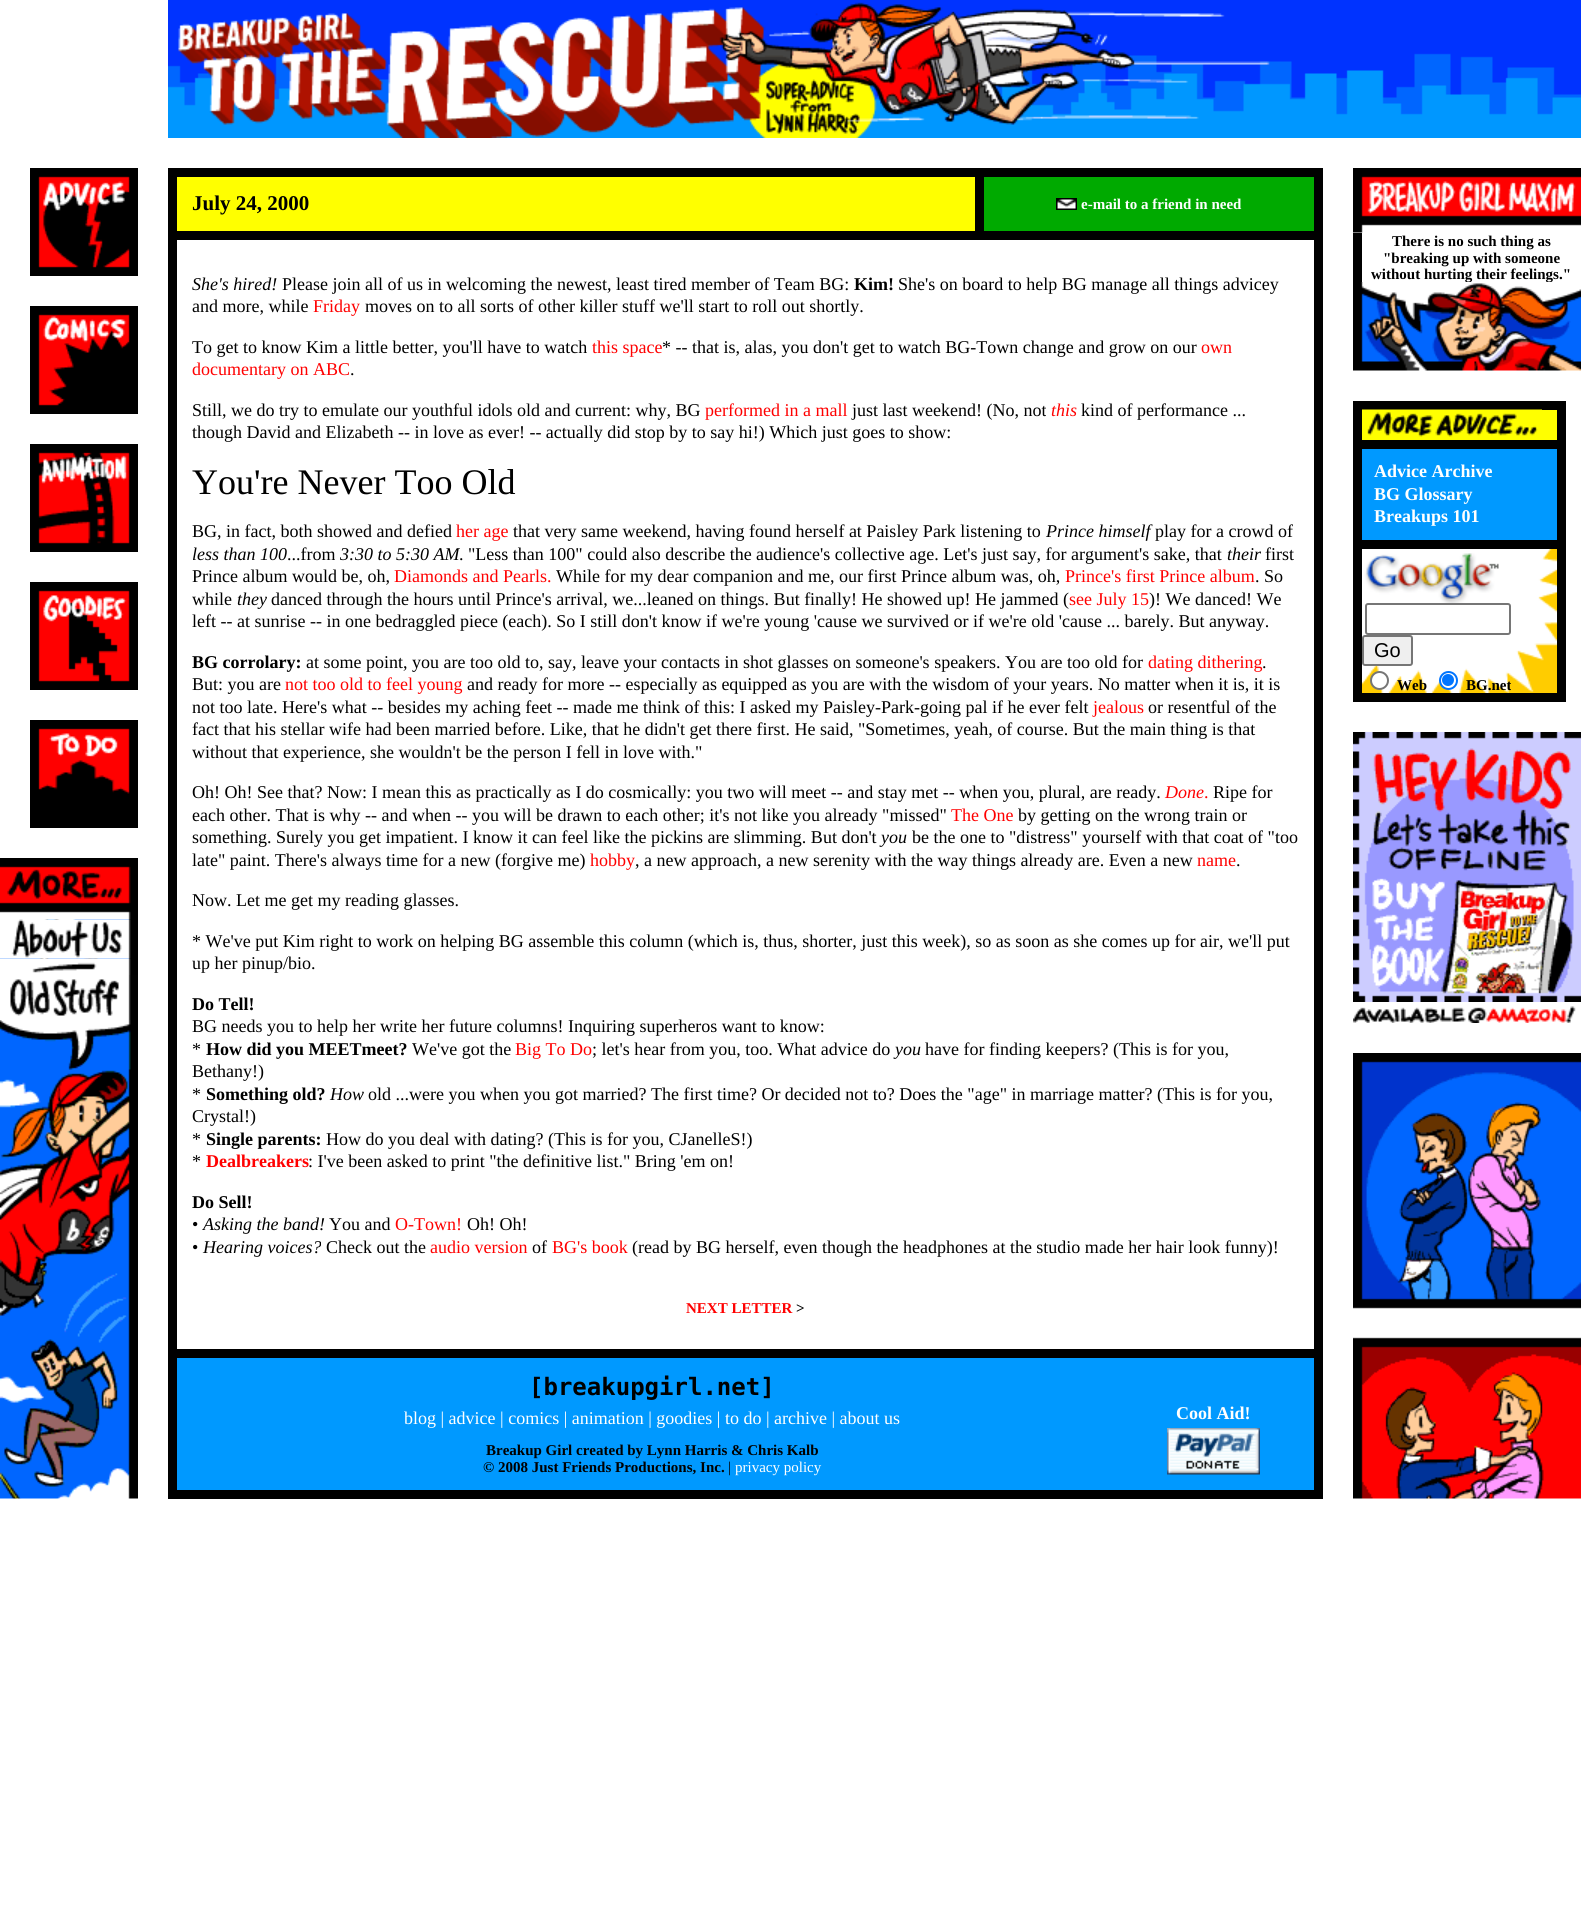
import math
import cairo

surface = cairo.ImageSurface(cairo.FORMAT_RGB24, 1581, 1905)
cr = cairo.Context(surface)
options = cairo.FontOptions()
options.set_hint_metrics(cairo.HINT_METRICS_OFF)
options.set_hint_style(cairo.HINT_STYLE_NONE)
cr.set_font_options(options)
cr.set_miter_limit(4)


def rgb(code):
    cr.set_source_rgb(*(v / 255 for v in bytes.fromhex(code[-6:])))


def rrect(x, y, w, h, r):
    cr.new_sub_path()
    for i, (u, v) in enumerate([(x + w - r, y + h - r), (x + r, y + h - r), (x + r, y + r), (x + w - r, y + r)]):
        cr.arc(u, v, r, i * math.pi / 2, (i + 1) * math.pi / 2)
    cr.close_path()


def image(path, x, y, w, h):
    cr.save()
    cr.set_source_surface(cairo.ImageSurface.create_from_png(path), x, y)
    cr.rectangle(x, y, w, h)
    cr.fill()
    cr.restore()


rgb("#ffffff")
cr.paint()
image("img/1.png", 168, 0, 1413, 138)
image("img/2.png", 0, 858, 138, 641)
image("img/3.png", 30, 168, 108, 108)
image("img/4.png", 30, 306, 108, 108)
image("img/5.png", 30, 444, 108, 108)
image("img/6.png", 30, 582, 108, 108)
image("img/7.png", 30, 720, 108, 108)
image("img/8.png", 0, 858, 131, 62)
image("img/9.png", 0, 919, 131, 40)
image("img/10.png", 0, 958, 131, 17)
image("img/11.png", 0, 975, 138, 45)
image("img/12.png", 0, 1020, 138, 50)
for x, y, w, h, color in [
    (168, 168, 1155, 1331, "#000000"),
    (177, 177, 798, 54, "#ffff00"),
    (984, 177, 330, 54, "#00aa00"),
]:
    rgb(color)
    cr.rectangle(x, y, w, h)
    cr.fill()
image("img/13.png", 1056, 198, 21, 12)
rgb("#ffffff")
cr.rectangle(177, 240, 1137, 1109)
cr.fill()
rgb("#0099ff")
cr.rectangle(177, 1358, 1137, 132)
cr.fill()
image("img/14.png", 1167, 1428, 93, 47)
image("img/15.png", 1353, 168, 228, 65)
for x, y, w, h, color in [
    (1353, 233, 9, 49, "#000000"),
    (1353, 401, 213, 301, "#000000"),
    (1362, 410, 195, 30, "#ffff00"),
]:
    rgb(color)
    cr.rectangle(x, y, w, h)
    cr.fill()
image("img/17.png", 1362, 409, 180, 28)
rgb("#0099ff")
cr.rectangle(1362, 449, 195, 91)
cr.fill()
image("img/18.png", 1362, 549, 195, 144)
image("img/19.png", 1364, 553, 135, 50)
rrect(1366, 604, 144, 30, 2)
rgb("#767676")
cr.stroke()
rgb("#efefef")
rrect(1363, 636, 49, 29, 2)
cr.fill_preserve()
rgb("#767676")
cr.stroke()
rgb("#ffffff")
cr.arc(1379.5, 680.5, 8.5, 0, 2 * math.pi)
cr.fill_preserve()
rgb("#767676")
cr.stroke()
rgb("#ffffff")
cr.arc(1448.5, 680.5, 8.5, 0, 2 * math.pi)
cr.fill_preserve()
rgb("#0075ff")
cr.stroke()
cr.arc(1448, 680, 6, 0, 2 * math.pi)
cr.fill()
image("img/20.png", 1353, 732, 228, 270)
image("img/21.png", 1353, 1006, 223, 17)
image("img/22.png", 1353, 1053, 228, 446)
cr.select_font_face("Liberation Serif", cairo.FONT_SLANT_NORMAL, cairo.FONT_WEIGHT_BOLD)
cr.set_font_size(21)
rgb("#000000")
cr.move_to(192, 210)
cr.show_text("July 24, 2000")
cr.set_font_size(15)
rgb("#ffffff")
cr.move_to(1081, 209)
cr.show_text("e-mail to a friend in need")
cr.select_font_face("Liberation Serif", cairo.FONT_SLANT_ITALIC)
cr.set_font_size(18)
rgb("#000000")
cr.move_to(192, 290)
cr.show_text("She's hired!")
cr.select_font_face("Liberation Serif")
cr.move_to(282, 290)
cr.show_text("Please join all of us in welcoming the newest, least tired member of Team BG:")
cr.select_font_face("Liberation Serif", cairo.FONT_SLANT_NORMAL, cairo.FONT_WEIGHT_BOLD)
cr.move_to(854, 290)
cr.show_text("Kim!")
cr.select_font_face("Liberation Serif")
cr.move_to(898, 290)
cr.show_text("She's on board to help BG manage all things advicey")
cr.move_to(192, 312)
cr.show_text("and more, while")
rgb("#ff0000")
cr.move_to(313, 312)
cr.show_text("Friday")
rgb("#000000")
cr.move_to(365, 312)
cr.show_text("moves on to all sorts of other killer stuff we'll start to roll out shortly.")
cr.move_to(192, 353)
cr.show_text("To get to know Kim a little better, you'll have to watch")
rgb("#ff0000")
cr.move_to(592, 353)
cr.show_text("this space")
rgb("#000000")
cr.move_to(662, 353)
cr.show_text("* -- that is, alas, you don't get to watch BG-Town change and grow on our")
rgb("#ff0000")
cr.move_to(1201, 353)
cr.show_text("own")
cr.move_to(192, 375)
cr.show_text("documentary on ABC")
rgb("#000000")
cr.move_to(350, 375)
cr.show_text(".")
cr.move_to(192, 416)
cr.show_text("Still, we do try to emulate our youthful idols old and current: why, BG")
rgb("#ff0000")
cr.move_to(705, 416)
cr.show_text("performed in a mall")
rgb("#000000")
cr.move_to(852, 416)
cr.show_text("just last weekend! (No, not")
cr.select_font_face("Liberation Serif", cairo.FONT_SLANT_ITALIC)
rgb("#ff0000")
cr.move_to(1051, 416)
cr.show_text("this")
cr.select_font_face("Liberation Serif")
rgb("#000000")
cr.move_to(1081, 416)
cr.show_text("kind of performance ...")
cr.move_to(192, 438)
cr.show_text("though David and Elizabeth -- in love as ever! -- actually did stop by to say hi!) Which just goes to show:")
cr.set_font_size(36)
cr.move_to(192, 494)
cr.show_text("You're Never Too Old")
cr.set_font_size(18)
cr.move_to(192, 537)
cr.show_text("BG, in fact, both showed and defied")
rgb("#ff0000")
cr.move_to(456, 537)
cr.show_text("her age")
rgb("#000000")
cr.move_to(513, 537)
cr.show_text("that very same weekend, having found herself at Paisley Park listening to")
cr.select_font_face("Liberation Serif", cairo.FONT_SLANT_ITALIC)
cr.move_to(1046, 537)
cr.show_text("Prince himself")
cr.select_font_face("Liberation Serif")
cr.move_to(1155, 537)
cr.show_text("play for a crowd of")
cr.select_font_face("Liberation Serif", cairo.FONT_SLANT_ITALIC)
cr.move_to(192, 560)
cr.show_text("less than 100")
cr.select_font_face("Liberation Serif")
cr.move_to(287, 560)
cr.show_text("...from")
cr.select_font_face("Liberation Serif", cairo.FONT_SLANT_ITALIC)
cr.move_to(340, 560)
cr.show_text("3:30 to 5:30 AM")
cr.select_font_face("Liberation Serif")
cr.move_to(459, 560)
cr.show_text(". \"Less than 100\" could also describe the audience's collective age. Let's just say, for argument's sake, that")
cr.select_font_face("Liberation Serif", cairo.FONT_SLANT_ITALIC)
cr.move_to(1227, 560)
cr.show_text("their")
cr.select_font_face("Liberation Serif")
cr.move_to(1265, 560)
cr.show_text("first")
cr.move_to(192, 582)
cr.show_text("Prince album would be, oh,")
rgb("#ff0000")
cr.move_to(394, 582)
cr.show_text("Diamonds and Pearls.")
rgb("#000000")
cr.move_to(556, 582)
cr.show_text("While for my dear companion and me, our first Prince album was, oh,")
rgb("#ff0000")
cr.move_to(1065, 582)
cr.show_text("Prince's first Prince album")
rgb("#000000")
cr.move_to(1255, 582)
cr.show_text(". So")
cr.move_to(192, 605)
cr.show_text("while")
cr.select_font_face("Liberation Serif", cairo.FONT_SLANT_ITALIC)
cr.move_to(237, 605)
cr.show_text("they")
cr.select_font_face("Liberation Serif")
cr.move_to(271, 605)
cr.show_text("danced through the hours until Prince's arrival, we...leaned on things. But finally! He showed up! He jammed (")
rgb("#ff0000")
cr.move_to(1069, 605)
cr.show_text("see July 15")
rgb("#000000")
cr.move_to(1149, 605)
cr.show_text(")! We danced! We")
cr.move_to(192, 627)
cr.show_text("left -- at sunrise -- in one bedraggled piece (each). So I still don't know if we're young 'cause we survived or if we're old 'cause ... barely. But anyway.")
cr.select_font_face("Liberation Serif", cairo.FONT_SLANT_NORMAL, cairo.FONT_WEIGHT_BOLD)
cr.move_to(192, 668)
cr.show_text("BG corrolary:")
cr.select_font_face("Liberation Serif")
cr.move_to(306, 668)
cr.show_text("at some point, you are too old to, say, leave your contacts in shot glasses on someone's speakers. You are too old for")
rgb("#ff0000")
cr.move_to(1148, 668)
cr.show_text("dating dithering")
rgb("#000000")
cr.move_to(1262, 668)
cr.show_text(".")
cr.move_to(192, 690)
cr.show_text("But: you are")
rgb("#ff0000")
cr.move_to(285, 690)
cr.show_text("not too old to feel young")
rgb("#000000")
cr.move_to(467, 690)
cr.show_text("and ready for more -- especially as equipped as you are with the wisdom of your years. No matter when it is, it is")
cr.move_to(192, 713)
cr.show_text("not too late. Here's what -- besides my aching feet -- made me think of this: I asked my Paisley-Park-going pal if he ever felt")
rgb("#ff0000")
cr.move_to(1093, 713)
cr.show_text("jealous")
rgb("#000000")
for x, y, s in [
    (1148, 713, "or resentful of the"),
    (192, 735, "fact that his stellar wife had been married before. Like, that he didn't get there first. He said, \"Sometimes, yeah, of course. But the main thing is that"),
    (192, 758, "without that experience, she wouldn't be the person I fell in love with.\""),
    (192, 798, "Oh! Oh! See that? Now: I mean this as practically as I do cosmically: you two will meet -- and stay met -- when you, plural, are ready."),
]:
    cr.move_to(x, y)
    cr.show_text(s)
cr.select_font_face("Liberation Serif", cairo.FONT_SLANT_ITALIC)
rgb("#ff0000")
cr.move_to(1165, 798)
cr.show_text("Done")
cr.select_font_face("Liberation Serif")
cr.move_to(1204, 798)
cr.show_text(".")
rgb("#000000")
cr.move_to(1213, 798)
cr.show_text("Ripe for")
cr.move_to(192, 821)
cr.show_text("each other. That is why -- and when -- you will be drawn to each other; it's not like you already \"missed\"")
rgb("#ff0000")
cr.move_to(951, 821)
cr.show_text("The One")
rgb("#000000")
cr.move_to(1018, 821)
cr.show_text("by getting on the wrong train or")
cr.move_to(192, 843)
cr.show_text("something. Surely you get impatient. I know it can feel like the pickins are slimming. But don't")
cr.select_font_face("Liberation Serif", cairo.FONT_SLANT_ITALIC)
cr.move_to(881, 843)
cr.show_text("you")
cr.select_font_face("Liberation Serif")
cr.move_to(912, 843)
cr.show_text("be the one to \"distress\" yourself with that coat of \"too")
cr.move_to(192, 866)
cr.show_text("late\" paint. There's always time for a new (forgive me)")
rgb("#ff0000")
cr.move_to(590, 866)
cr.show_text("hobby")
rgb("#000000")
cr.move_to(635, 866)
cr.show_text(", a new approach, a new serenity with the way things already are. Even a new")
rgb("#ff0000")
cr.move_to(1197, 866)
cr.show_text("name")
rgb("#000000")
for x, y, s in [
    (1236, 866, "."),
    (192, 906, "Now. Let me get my reading glasses."),
    (192, 947, "* We've put Kim right to work on helping BG assemble this column (which is, thus, shorter, just this week), so as soon as she comes up for air, we'll put"),
    (192, 969, "up her pinup/bio."),
]:
    cr.move_to(x, y)
    cr.show_text(s)
cr.select_font_face("Liberation Serif", cairo.FONT_SLANT_NORMAL, cairo.FONT_WEIGHT_BOLD)
cr.move_to(192, 1010)
cr.show_text("Do Tell!")
cr.select_font_face("Liberation Serif")
cr.move_to(192, 1032)
cr.show_text("BG needs you to help her write her future columns! Inquiring superheros want to know:")
cr.move_to(192, 1055)
cr.show_text("*")
cr.select_font_face("Liberation Serif", cairo.FONT_SLANT_NORMAL, cairo.FONT_WEIGHT_BOLD)
cr.move_to(206, 1055)
cr.show_text("How did you MEETmeet?")
cr.select_font_face("Liberation Serif")
cr.move_to(412, 1055)
cr.show_text("We've got the")
rgb("#ff0000")
cr.move_to(515, 1055)
cr.show_text("Big To Do")
rgb("#000000")
cr.move_to(592, 1055)
cr.show_text("; let's hear from you, too. What advice do")
cr.select_font_face("Liberation Serif", cairo.FONT_SLANT_ITALIC)
cr.move_to(895, 1055)
cr.show_text("you")
cr.select_font_face("Liberation Serif")
for x, y, s in [
    (925, 1055, "have for finding keepers? (This is for you,"),
    (192, 1077, "Bethany!)"),
    (192, 1100, "*"),
]:
    cr.move_to(x, y)
    cr.show_text(s)
cr.select_font_face("Liberation Serif", cairo.FONT_SLANT_NORMAL, cairo.FONT_WEIGHT_BOLD)
cr.move_to(206, 1100)
cr.show_text("Something old?")
cr.select_font_face("Liberation Serif", cairo.FONT_SLANT_ITALIC)
cr.move_to(330, 1100)
cr.show_text("How")
cr.select_font_face("Liberation Serif")
for x, y, s in [
    (368, 1100, "old ...were you when you got married? The first time? Or decided not to? Does the \"age\" in marriage matter? (This is for you,"),
    (192, 1122, "Crystal!)"),
    (192, 1145, "*"),
]:
    cr.move_to(x, y)
    cr.show_text(s)
cr.select_font_face("Liberation Serif", cairo.FONT_SLANT_NORMAL, cairo.FONT_WEIGHT_BOLD)
cr.move_to(206, 1145)
cr.show_text("Single parents:")
cr.select_font_face("Liberation Serif")
cr.move_to(326, 1145)
cr.show_text("How do you deal with dating? (This is for you, CJanelleS!)")
cr.move_to(192, 1167)
cr.show_text("*")
cr.select_font_face("Liberation Serif", cairo.FONT_SLANT_NORMAL, cairo.FONT_WEIGHT_BOLD)
rgb("#ff0000")
cr.move_to(206, 1167)
cr.show_text("Dealbreakers")
cr.select_font_face("Liberation Serif")
rgb("#000000")
cr.move_to(308, 1167)
cr.show_text(": I've been asked to print \"the definitive list.\" Bring 'em on!")
cr.select_font_face("Liberation Serif", cairo.FONT_SLANT_NORMAL, cairo.FONT_WEIGHT_BOLD)
cr.move_to(192, 1208)
cr.show_text("Do Sell!")
cr.select_font_face("Liberation Serif")
cr.move_to(192, 1230)
cr.show_text("•")
cr.select_font_face("Liberation Serif", cairo.FONT_SLANT_ITALIC)
cr.move_to(203, 1230)
cr.show_text("Asking the band!")
cr.select_font_face("Liberation Serif")
cr.move_to(329, 1230)
cr.show_text("You and")
rgb("#ff0000")
cr.move_to(395, 1230)
cr.show_text("O-Town!")
rgb("#000000")
cr.move_to(467, 1230)
cr.show_text("Oh! Oh!")
cr.move_to(192, 1253)
cr.show_text("•")
cr.select_font_face("Liberation Serif", cairo.FONT_SLANT_ITALIC)
cr.move_to(203, 1253)
cr.show_text("Hearing voices?")
cr.select_font_face("Liberation Serif")
cr.move_to(326, 1253)
cr.show_text("Check out the")
rgb("#ff0000")
cr.move_to(430, 1253)
cr.show_text("audio version")
rgb("#000000")
cr.move_to(532, 1253)
cr.show_text("of")
rgb("#ff0000")
cr.move_to(552, 1253)
cr.show_text("BG's book")
rgb("#000000")
cr.move_to(632, 1253)
cr.show_text("(read by BG herself, even though the headphones at the studio made her hair look funny)!")
cr.select_font_face("Liberation Serif", cairo.FONT_SLANT_NORMAL, cairo.FONT_WEIGHT_BOLD)
cr.set_font_size(15)
rgb("#ff0000")
cr.move_to(686, 1313)
cr.show_text("NEXT LETTER")
rgb("#000000")
cr.move_to(796, 1313)
cr.show_text(">")
cr.select_font_face("DejaVu Sans Mono", cairo.FONT_SLANT_NORMAL, cairo.FONT_WEIGHT_BOLD)
cr.set_font_size(24)
cr.move_to(529, 1395)
cr.show_text("[breakupgirl.net]")
cr.select_font_face("Liberation Serif")
cr.set_font_size(18)
rgb("#ffffff")
cr.move_to(404, 1424)
cr.show_text("blog | advice | comics | animation | goodies | to do | archive | about us")
cr.select_font_face("Liberation Serif", cairo.FONT_SLANT_NORMAL, cairo.FONT_WEIGHT_BOLD)
cr.set_font_size(15)
rgb("#000000")
cr.move_to(486, 1455)
cr.show_text("Breakup Girl created by Lynn Harris & Chris Kalb")
cr.move_to(483, 1472)
cr.show_text("© 2008 Just Friends Productions, Inc.")
cr.select_font_face("Liberation Serif")
cr.move_to(728, 1472)
cr.show_text("|")
rgb("#ffffff")
cr.move_to(735, 1472)
cr.show_text("privacy policy")
cr.select_font_face("Liberation Serif", cairo.FONT_SLANT_NORMAL, cairo.FONT_WEIGHT_BOLD)
cr.set_font_size(18)
cr.move_to(1176, 1419)
cr.show_text("Cool Aid!")
cr.set_font_size(15)
rgb("#000000")
for x, y, s in [
    (1392, 246, "There is no such thing as"),
    (1383, 263, "\"breaking up with someone"),
    (1371, 279, "without hurting their feelings.\""),
]:
    cr.move_to(x, y)
    cr.show_text(s)
image("img/16.png", 1353, 282, 228, 89)
cr.set_font_size(18)
rgb("#ffffff")
for x, y, s in [
    (1374, 477, "Advice Archive"),
    (1374, 500, "BG Glossary"),
    (1374, 522, "Breakups 101"),
]:
    cr.move_to(x, y)
    cr.show_text(s)
cr.select_font_face("Liberation Sans")
cr.set_font_size(20)
rgb("#000000")
cr.move_to(1374, 657)
cr.show_text("Go")
cr.select_font_face("Liberation Serif", cairo.FONT_SLANT_NORMAL, cairo.FONT_WEIGHT_BOLD)
cr.set_font_size(15)
cr.move_to(1397, 690)
cr.show_text("Web")
cr.move_to(1466, 690)
cr.show_text("BG.net")
surface.write_to_png("page.png")
